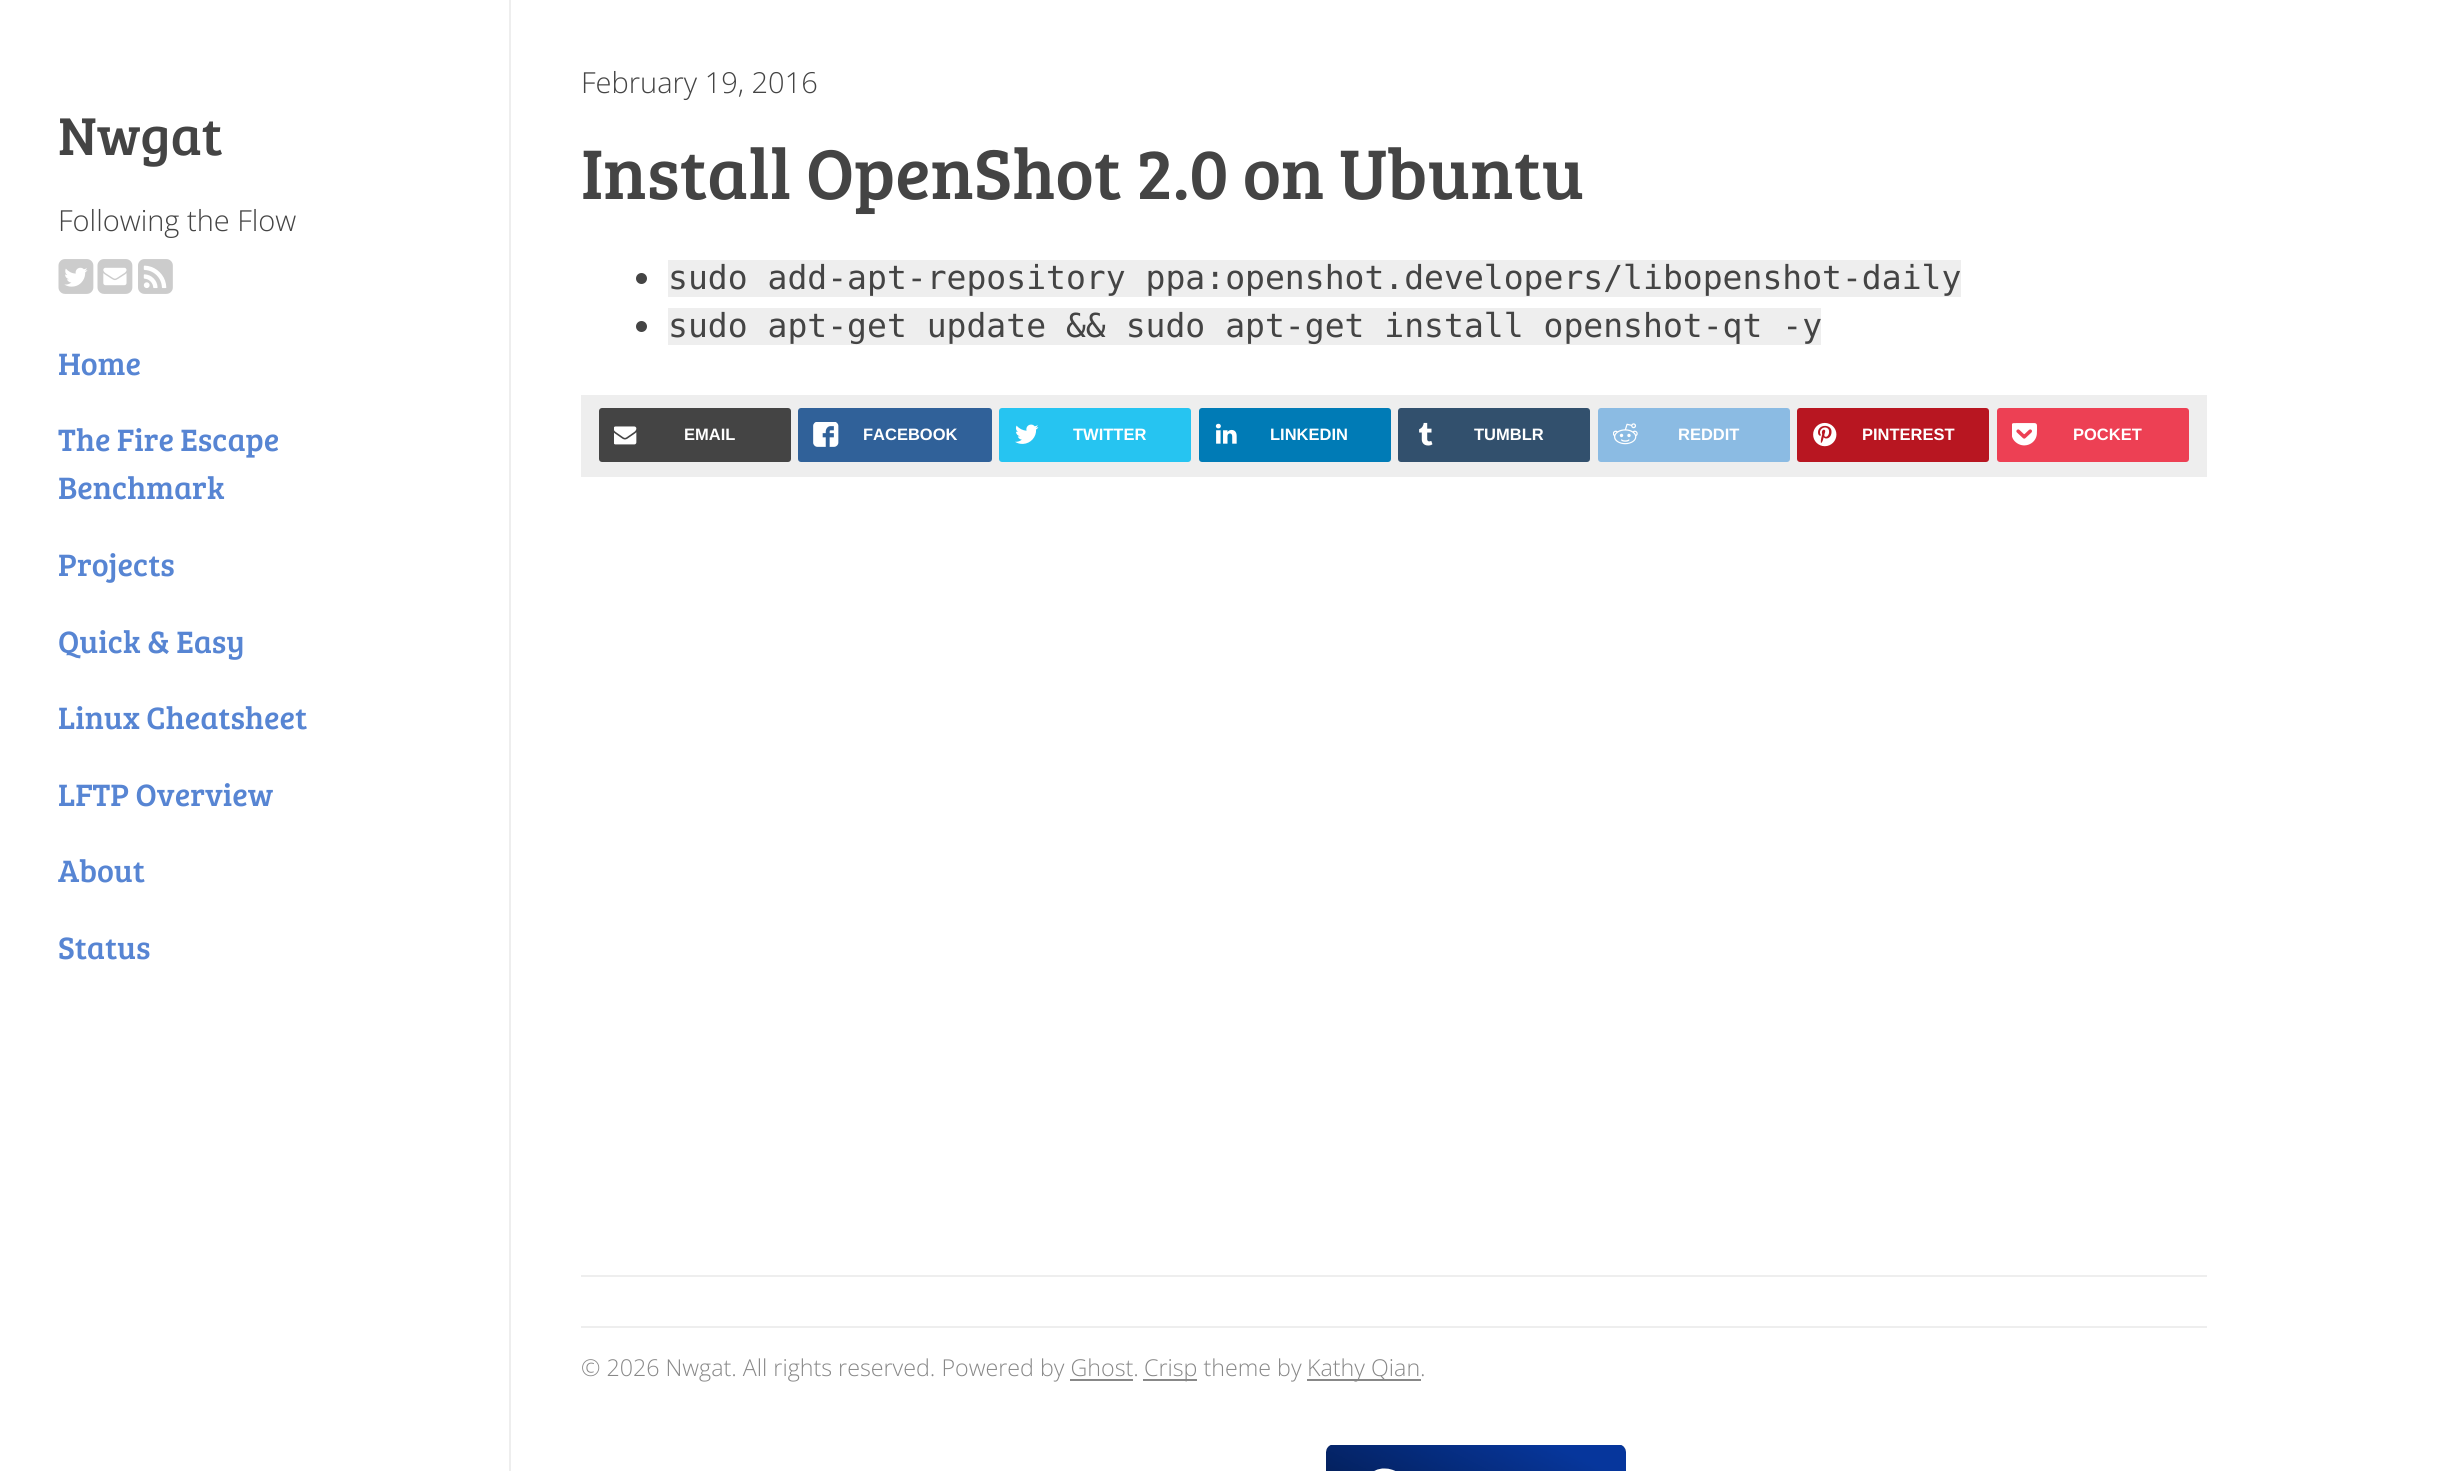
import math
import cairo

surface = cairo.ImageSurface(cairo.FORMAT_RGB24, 2444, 1471)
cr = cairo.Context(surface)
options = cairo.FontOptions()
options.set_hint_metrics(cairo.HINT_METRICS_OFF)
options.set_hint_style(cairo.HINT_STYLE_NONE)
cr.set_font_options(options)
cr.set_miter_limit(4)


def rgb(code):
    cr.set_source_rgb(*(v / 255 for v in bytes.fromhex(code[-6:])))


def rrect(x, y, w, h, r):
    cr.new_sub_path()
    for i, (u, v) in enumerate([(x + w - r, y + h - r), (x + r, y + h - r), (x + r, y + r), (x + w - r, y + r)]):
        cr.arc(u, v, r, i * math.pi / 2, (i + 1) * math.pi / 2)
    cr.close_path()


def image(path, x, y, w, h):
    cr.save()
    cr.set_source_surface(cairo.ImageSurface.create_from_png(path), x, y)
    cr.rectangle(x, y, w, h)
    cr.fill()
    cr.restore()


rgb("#ffffff")
cr.paint()
rgb("#eeeeee")
cr.rectangle(509, 0, 2, 1471)
cr.fill()
image("img/1.png", 58, 259, 36, 35)
image("img/2.png", 97, 259, 36, 35)
image("img/3.png", 138, 259, 35, 35)
cr.rectangle(581, 1326, 1626, 2)
cr.fill()
rgb("#444444")
cr.arc(641.5, 278.5, 5.5, 0, 2 * math.pi)
cr.fill()
rgb("#eeeeee")
cr.rectangle(668, 260, 1293, 37)
cr.fill()
rgb("#444444")
cr.arc(641.5, 326.5, 5.5, 0, 2 * math.pi)
cr.fill()
rgb("#eeeeee")
cr.rectangle(668, 308, 1153, 37)
cr.fill()
cr.rectangle(581, 395, 1626, 82)
cr.fill()
rgb("#444444")
rrect(599, 408, 192, 54, 3)
cr.fill()
image("img/4.png", 614, 426, 23, 19)
rgb("#306199")
rrect(798, 408, 194, 54, 3)
cr.fill()
image("img/5.png", 813, 422, 26, 25)
rgb("#26c4f1")
rrect(999, 408, 192, 54, 3)
cr.fill()
image("img/6.png", 1015, 424, 24, 20)
rgb("#007bb6")
rrect(1199, 408, 192, 54, 3)
cr.fill()
image("img/7.png", 1215, 423, 22, 21)
rgb("#32506d")
rrect(1398, 408, 192, 54, 3)
cr.fill()
image("img/8.png", 1419, 422, 14, 24)
rgb("#8bbbe3")
rrect(1598, 408, 192, 54, 3)
cr.fill()
image("img/9.png", 1613, 423, 25, 22)
rgb("#b81621")
rrect(1797, 408, 192, 54, 3)
cr.fill()
image("img/10.png", 1813, 422, 24, 25)
rgb("#ed4054")
rrect(1997, 408, 192, 54, 3)
cr.fill()
image("img/11.png", 2012, 423, 25, 23)
for x, y, w, h, color in [
    (581, 1275, 1626, 2, "#eeeeee"),
    (1143, 1379, 54, 2, "#888888"),
    (1307, 1379, 114, 2, "#888888"),
    (1070, 1379, 63, 2, "#888888"),
]:
    rgb(color)
    cr.rectangle(x, y, w, h)
    cr.fill()
image("img/12.png", 1326, 1445, 300, 26)
cr.select_font_face("Bree Serif")
cr.set_font_size(55)
rgb("#444444")
cr.move_to(58, 155)
cr.show_text("Nwgat")
cr.select_font_face("Open Sans Light")
cr.set_font_size(29)
cr.move_to(58, 231)
cr.show_text("Following the Flow")
cr.select_font_face("Bree Serif")
cr.set_font_size(32)
rgb("#5785d3")
for x, y, s in [
    (58, 375, "Home"),
    (58, 451, "The Fire Escape"),
    (58, 499, "Benchmark"),
    (58, 576, "Projects"),
    (58, 653, "Quick & Easy"),
    (58, 729, "Linux Cheatsheet"),
    (58, 806, "LFTP Overview"),
    (58, 882, "About"),
    (58, 959, "Status"),
]:
    cr.move_to(x, y)
    cr.show_text(s)
cr.select_font_face("Open Sans Light")
cr.set_font_size(29)
rgb("#444444")
cr.move_to(581, 93)
cr.show_text("February 19, 2016")
cr.select_font_face("Bree Serif")
cr.set_font_size(72.6)
cr.move_to(581, 199)
cr.show_text("Install OpenShot 2.0 on Ubuntu")
cr.select_font_face("DejaVu Sans Mono")
cr.set_font_size(33.05)
cr.move_to(668, 289)
cr.show_text("sudo add-apt-repository ppa:openshot.developers/libopenshot-daily")
cr.move_to(668, 337)
cr.show_text("sudo apt-get update && sudo apt-get install openshot-qt -y")
cr.select_font_face("Liberation Sans", cairo.FONT_SLANT_NORMAL, cairo.FONT_WEIGHT_BOLD)
cr.set_font_size(16.5)
rgb("#ffffff")
for x, y, s in [
    (684, 440, "EMAIL"),
    (863, 440, "FACEBOOK"),
    (1073, 440, "TWITTER"),
    (1270, 440, "LINKEDIN"),
    (1474, 440, "TUMBLR"),
    (1678, 440, "REDDIT"),
    (1862, 440, "PINTEREST"),
    (2073, 440, "POCKET"),
]:
    cr.move_to(x, y)
    cr.show_text(s)
cr.select_font_face("Open Sans Light")
cr.set_font_size(23.25)
rgb("#888888")
for x, y, s in [
    (581, 1376, "© 2026 Nwgat. All rights reserved. Powered by Ghost."),
    (1144, 1376, "Crisp theme by"),
    (1307, 1376, "Kathy Qian."),
]:
    cr.move_to(x, y)
    cr.show_text(s)
surface.write_to_png("page.png")
